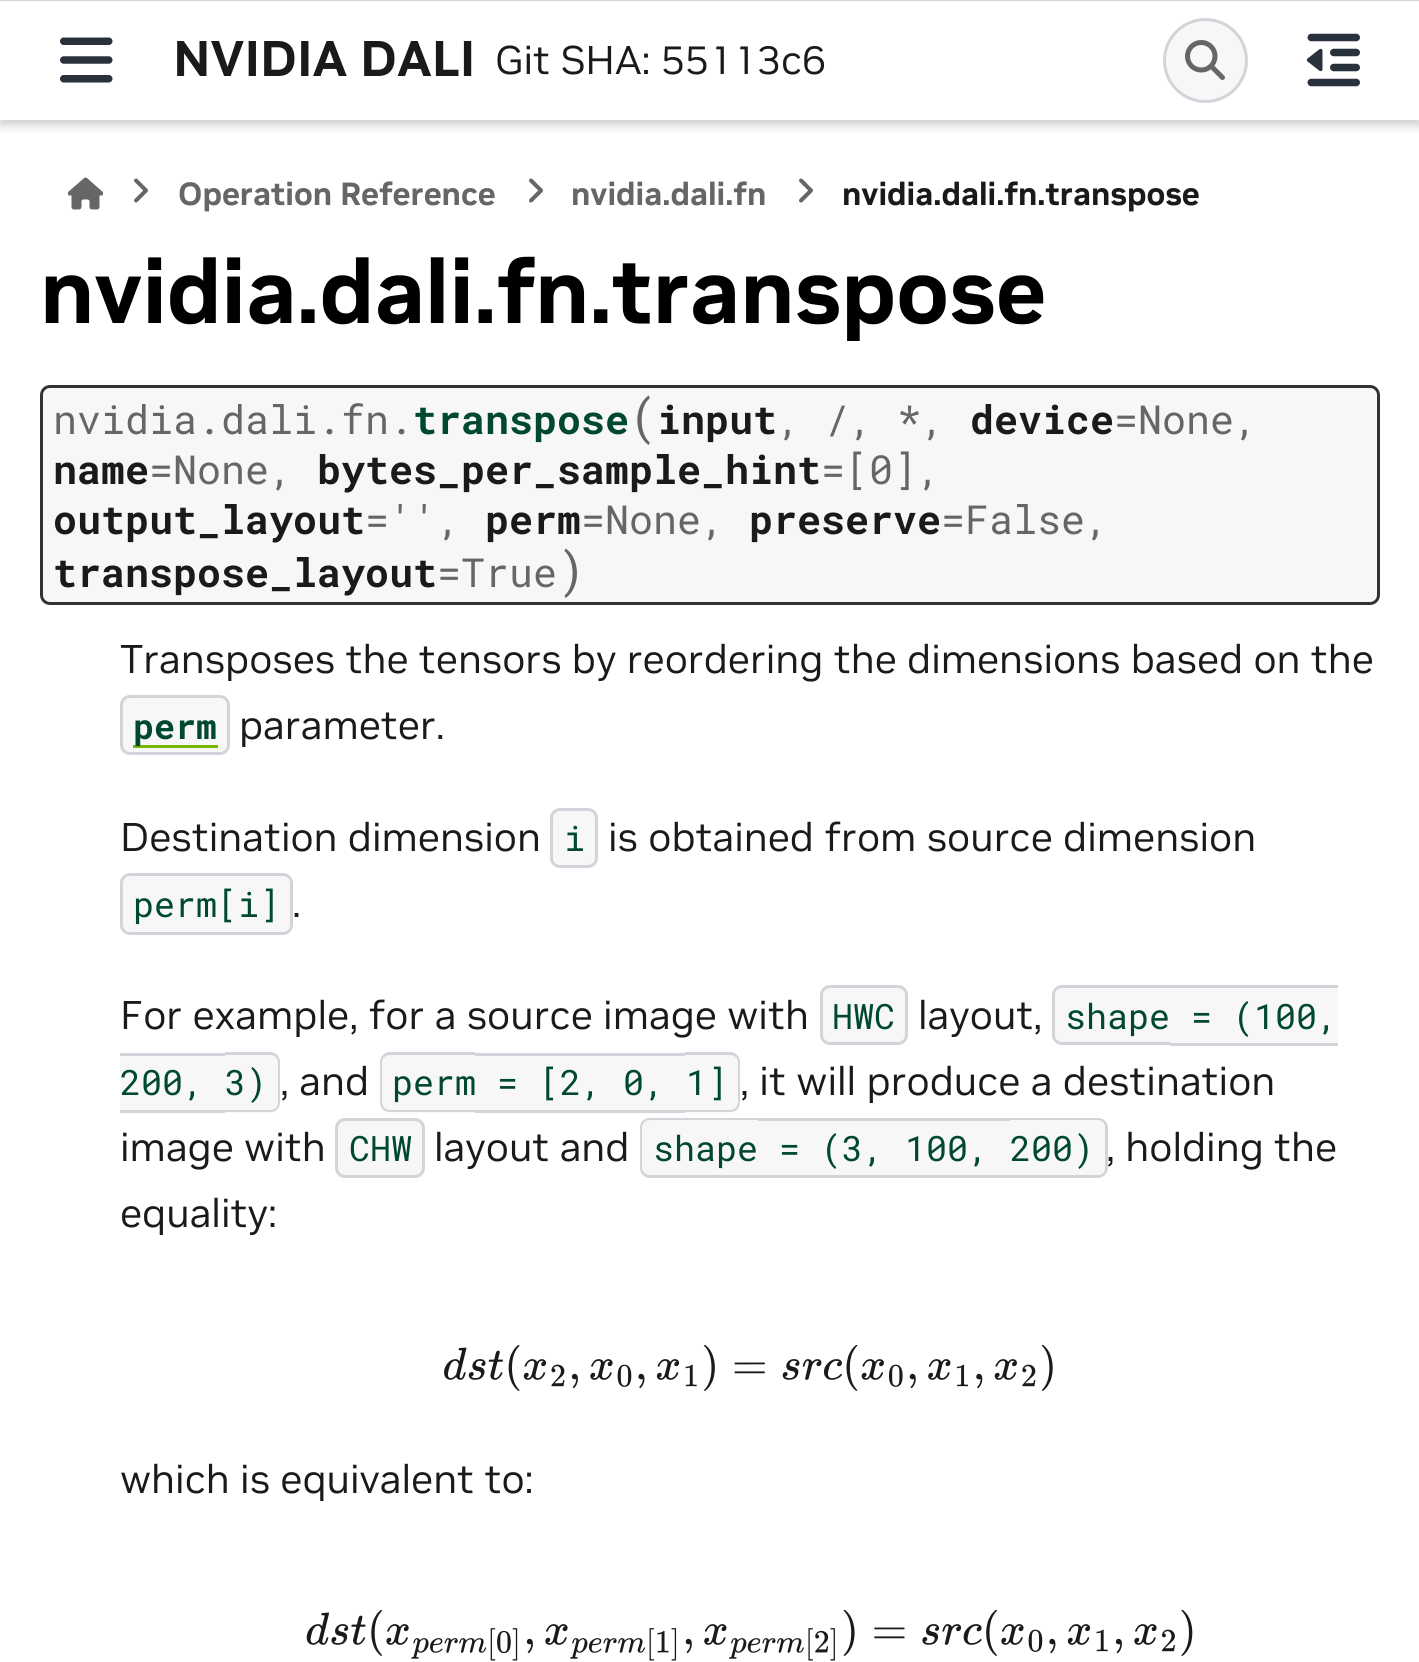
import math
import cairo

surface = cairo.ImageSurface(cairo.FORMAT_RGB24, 1419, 1662)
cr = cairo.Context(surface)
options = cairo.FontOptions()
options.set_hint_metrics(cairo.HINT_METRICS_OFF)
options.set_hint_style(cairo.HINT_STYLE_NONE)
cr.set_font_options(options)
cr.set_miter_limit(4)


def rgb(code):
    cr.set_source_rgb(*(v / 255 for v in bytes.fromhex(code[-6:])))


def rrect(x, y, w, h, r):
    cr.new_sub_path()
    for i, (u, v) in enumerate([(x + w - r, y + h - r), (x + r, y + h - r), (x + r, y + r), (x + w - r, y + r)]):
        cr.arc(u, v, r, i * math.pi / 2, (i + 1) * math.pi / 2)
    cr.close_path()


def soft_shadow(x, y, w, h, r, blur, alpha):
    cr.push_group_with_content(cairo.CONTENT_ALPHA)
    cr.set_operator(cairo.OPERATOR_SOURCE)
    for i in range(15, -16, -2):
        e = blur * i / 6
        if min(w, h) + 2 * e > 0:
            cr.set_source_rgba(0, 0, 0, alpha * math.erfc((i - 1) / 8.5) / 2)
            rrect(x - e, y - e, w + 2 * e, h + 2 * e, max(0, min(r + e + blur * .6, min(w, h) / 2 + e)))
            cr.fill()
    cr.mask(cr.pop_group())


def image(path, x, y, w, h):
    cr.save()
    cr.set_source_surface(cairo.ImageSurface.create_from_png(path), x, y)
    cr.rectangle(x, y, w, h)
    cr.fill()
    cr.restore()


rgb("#ffffff")
cr.paint()
cr.save()
cr.rectangle(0, 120, 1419, 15)
cr.clip()
rgb("#cccccc")
soft_shadow(0, 5, 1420, 120, 0, 5, 1)
cr.restore()
rgb("#d1d5da")
cr.rectangle(0, 0, 1419, 1)
cr.fill()
image("img/1.png", 60, 37, 53, 46)
rgb("#f7f7f7")
cr.arc(1205.5, 60.5, 41, 0, 2 * math.pi)
cr.fill_preserve()
rgb("#d1d5da")
cr.set_line_width(3)
cr.stroke()
image("img/2.png", 1185, 40, 40, 40)
image("img/3.png", 1306, 33, 54, 54)
image("img/4.png", 68, 177, 35, 33)
image("img/5.png", 134, 178, 14, 25)
image("img/5.png", 529, 178, 14, 25)
image("img/5.png", 799, 178, 14, 25)
rgb("#f7f7f7")
rrect(41.5, 386.5, 1337, 217, 8.5)
cr.fill_preserve()
rgb("#333333")
cr.stroke()
rgb("#f7f7f7")
rrect(121.5, 696.5, 107, 57, 8.5)
cr.fill_preserve()
rgb("#d1d5da")
cr.stroke()
rgb("#76b900")
cr.rectangle(133, 745, 85, 3)
cr.fill()
rgb("#f7f7f7")
rrect(551.5, 809.5, 45, 57, 8.5)
cr.fill_preserve()
rgb("#d1d5da")
cr.stroke()
rgb("#f7f7f7")
rrect(121.5, 874.5, 170, 59, 8.5)
cr.fill_preserve()
rgb("#d1d5da")
cr.stroke()
rgb("#f7f7f7")
rrect(821.5, 986.5, 85, 57, 8.5)
cr.fill_preserve()
rgb("#d1d5da")
cr.stroke()
rgb("#f7f7f7")
cr.new_path()
cr.move_to(1063, 985)
cr.line_to(1170, 985)
cr.line_to(1170, 1045)
cr.line_to(1063, 1045)
cr.curve_to(1057.5, 1045, 1053, 1040.5, 1053, 1035)
cr.line_to(1053, 995)
cr.curve_to(1053, 989.5, 1057.5, 985, 1063, 985)
cr.close_path()
cr.fill()
rgb("#d1d5da")
cr.set_fill_rule(cairo.FILL_RULE_EVEN_ODD)
cr.new_path()
cr.move_to(1062, 985)
cr.line_to(1170, 985)
cr.line_to(1170, 1045)
cr.line_to(1062, 1045)
cr.curve_to(1057, 1045, 1052, 1041, 1052, 1035)
cr.line_to(1052, 995)
cr.curve_to(1052, 989, 1057, 985, 1062, 985)
cr.close_path()
cr.move_to(1062, 988)
cr.line_to(1170, 988)
cr.line_to(1170, 1042)
cr.line_to(1062, 1042)
cr.curve_to(1058, 1042, 1055, 1039, 1055, 1035)
cr.line_to(1055, 995)
cr.curve_to(1055, 991, 1058, 988, 1062, 988)
cr.close_path()
cr.fill()
for x, y, w, h, color in [
    (1170, 988, 168, 55, "#f7f7f7"),
    (1170, 985, 168, 3, "#d1d5da"),
    (1170, 1043, 168, 3, "#d1d5da"),
    (120, 1056, 105, 54, "#f7f7f7"),
    (120, 1053, 105, 3, "#d1d5da"),
    (120, 1110, 105, 3, "#d1d5da"),
]:
    rgb(color)
    cr.rectangle(x, y, w, h)
    cr.fill()
rgb("#f7f7f7")
cr.new_path()
cr.move_to(225, 1053)
cr.line_to(270, 1053)
cr.curve_to(275.5, 1053, 280, 1057.5, 280, 1063)
cr.line_to(280, 1103)
cr.curve_to(280, 1108.5, 275.5, 1113, 270, 1113)
cr.line_to(225, 1113)
cr.close_path()
cr.fill()
rgb("#d1d5da")
cr.new_path()
cr.move_to(225, 1052)
cr.line_to(270, 1052)
cr.curve_to(276, 1052, 280, 1057, 280, 1062)
cr.line_to(280, 1102)
cr.curve_to(280, 1108, 276, 1112, 270, 1112)
cr.line_to(225, 1112)
cr.close_path()
cr.move_to(225, 1055)
cr.line_to(270, 1055)
cr.curve_to(274, 1055, 278, 1058, 278, 1062)
cr.line_to(278, 1102)
cr.curve_to(278, 1107, 274, 1110, 270, 1110)
cr.line_to(225, 1110)
cr.close_path()
cr.fill()
rgb("#f7f7f7")
cr.new_path()
cr.move_to(390, 1053)
cr.line_to(475, 1053)
cr.line_to(475, 1113)
cr.line_to(390, 1113)
cr.curve_to(384.5, 1113, 380, 1108.5, 380, 1103)
cr.line_to(380, 1063)
cr.curve_to(380, 1057.5, 384.5, 1053, 390, 1053)
cr.close_path()
cr.fill()
rgb("#d1d5da")
cr.new_path()
cr.move_to(390, 1052)
cr.line_to(475, 1052)
cr.line_to(475, 1112)
cr.line_to(390, 1112)
cr.curve_to(384, 1112, 380, 1108, 380, 1102)
cr.line_to(380, 1062)
cr.curve_to(380, 1057, 384, 1052, 390, 1052)
cr.close_path()
cr.move_to(390, 1055)
cr.line_to(475, 1055)
cr.line_to(475, 1110)
cr.line_to(390, 1110)
cr.curve_to(386, 1110, 382, 1107, 382, 1102)
cr.line_to(382, 1062)
cr.curve_to(382, 1058, 386, 1055, 390, 1055)
cr.close_path()
cr.fill()
for x, y, w, h, color in [
    (475, 1056, 210, 54, "#f7f7f7"),
    (475, 1053, 210, 3, "#d1d5da"),
    (475, 1110, 210, 3, "#d1d5da"),
]:
    rgb(color)
    cr.rectangle(x, y, w, h)
    cr.fill()
rgb("#f7f7f7")
cr.new_path()
cr.move_to(685, 1053)
cr.line_to(730, 1053)
cr.curve_to(735.5, 1053, 740, 1057.5, 740, 1063)
cr.line_to(740, 1103)
cr.curve_to(740, 1108.5, 735.5, 1113, 730, 1113)
cr.line_to(685, 1113)
cr.close_path()
cr.fill()
rgb("#d1d5da")
cr.new_path()
cr.move_to(685, 1052)
cr.line_to(730, 1052)
cr.curve_to(736, 1052, 740, 1057, 740, 1062)
cr.line_to(740, 1102)
cr.curve_to(740, 1108, 736, 1112, 730, 1112)
cr.line_to(685, 1112)
cr.close_path()
cr.move_to(685, 1055)
cr.line_to(730, 1055)
cr.curve_to(734, 1055, 738, 1058, 738, 1062)
cr.line_to(738, 1102)
cr.curve_to(738, 1107, 734, 1110, 730, 1110)
cr.line_to(685, 1110)
cr.close_path()
cr.fill()
rgb("#f7f7f7")
rrect(336.5, 1119.5, 87, 57, 8.5)
cr.fill_preserve()
rgb("#d1d5da")
cr.stroke()
rgb("#f7f7f7")
cr.new_path()
cr.move_to(650, 1118)
cr.line_to(758, 1118)
cr.line_to(758, 1178)
cr.line_to(650, 1178)
cr.curve_to(644.5, 1178, 640, 1173.5, 640, 1168)
cr.line_to(640, 1128)
cr.curve_to(640, 1122.5, 644.5, 1118, 650, 1118)
cr.close_path()
cr.fill()
rgb("#d1d5da")
cr.new_path()
cr.move_to(650, 1118)
cr.line_to(758, 1118)
cr.line_to(758, 1178)
cr.line_to(650, 1178)
cr.curve_to(644, 1178, 640, 1173, 640, 1168)
cr.line_to(640, 1128)
cr.curve_to(640, 1122, 644, 1118, 650, 1118)
cr.close_path()
cr.move_to(650, 1120)
cr.line_to(758, 1120)
cr.line_to(758, 1175)
cr.line_to(650, 1175)
cr.curve_to(646, 1175, 642, 1172, 642, 1168)
cr.line_to(642, 1128)
cr.curve_to(642, 1123, 646, 1120, 650, 1120)
cr.close_path()
cr.fill()
for x, y, w, h, color in [
    (758, 1121, 252, 54, "#f7f7f7"),
    (758, 1118, 252, 3, "#d1d5da"),
    (758, 1175, 252, 3, "#d1d5da"),
]:
    rgb(color)
    cr.rectangle(x, y, w, h)
    cr.fill()
rgb("#f7f7f7")
cr.new_path()
cr.move_to(1010, 1118)
cr.line_to(1098, 1118)
cr.curve_to(1103.5, 1118, 1108, 1122.5, 1108, 1128)
cr.line_to(1108, 1168)
cr.curve_to(1108, 1173.5, 1103.5, 1178, 1098, 1178)
cr.line_to(1010, 1178)
cr.close_path()
cr.fill()
rgb("#d1d5da")
cr.new_path()
cr.move_to(1010, 1118)
cr.line_to(1098, 1118)
cr.curve_to(1103, 1118, 1108, 1122, 1108, 1128)
cr.line_to(1108, 1168)
cr.curve_to(1108, 1173, 1103, 1178, 1098, 1178)
cr.line_to(1010, 1178)
cr.close_path()
cr.move_to(1010, 1120)
cr.line_to(1098, 1120)
cr.curve_to(1102, 1120, 1105, 1123, 1105, 1128)
cr.line_to(1105, 1168)
cr.curve_to(1105, 1172, 1102, 1175, 1098, 1175)
cr.line_to(1010, 1175)
cr.close_path()
cr.fill()
image("img/6.png", 444, 1345, 609, 46)
image("img/7.png", 306, 1610, 887, 51)
cr.select_font_face("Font", cairo.FONT_SLANT_NORMAL, cairo.FONT_WEIGHT_BOLD)
cr.set_font_size(50)
rgb("#1a1a1a")
cr.move_to(173, 76)
cr.show_text("NVIDIA DALI")
cr.select_font_face("Font")
cr.set_font_size(40)
cr.move_to(495, 74)
cr.show_text("Git SHA: 55113c6")
cr.select_font_face("Font", cairo.FONT_SLANT_NORMAL, cairo.FONT_WEIGHT_BOLD)
cr.set_font_size(32)
rgb("#666666")
cr.move_to(178, 205)
cr.show_text("Operation Reference")
cr.move_to(571, 205)
cr.show_text("nvidia.dali.fn")
rgb("#1a1a1a")
cr.move_to(842, 205)
cr.show_text("nvidia.dali.fn.transpose")
cr.set_font_size(90)
rgb("#000000")
cr.move_to(40, 323)
cr.show_text("nvidia.dali.fn.transpose")
cr.select_font_face("Roboto Mono")
cr.set_font_size(40)
rgb("#666666")
cr.move_to(53, 434)
cr.show_text("nvidia.dali.fn.")
cr.select_font_face("Roboto Mono", cairo.FONT_SLANT_NORMAL, cairo.FONT_WEIGHT_BOLD)
rgb("#004831")
cr.move_to(413, 434)
cr.show_text("transpose")
cr.select_font_face("Roboto Mono")
cr.set_font_size(48)
rgb("#666666")
cr.move_to(629, 434)
cr.show_text("(")
cr.select_font_face("Roboto Mono", cairo.FONT_SLANT_NORMAL, cairo.FONT_WEIGHT_BOLD)
cr.set_font_size(40)
rgb("#1a1a1a")
cr.move_to(657, 434)
cr.show_text("input")
cr.select_font_face("Roboto Mono")
rgb("#666666")
cr.move_to(777, 434)
cr.show_text(", /, *,")
cr.select_font_face("Roboto Mono", cairo.FONT_SLANT_NORMAL, cairo.FONT_WEIGHT_BOLD)
rgb("#1a1a1a")
cr.move_to(970, 434)
cr.show_text("device")
cr.select_font_face("Roboto Mono")
rgb("#666666")
cr.move_to(1114, 434)
cr.show_text("=None,")
cr.select_font_face("Roboto Mono", cairo.FONT_SLANT_NORMAL, cairo.FONT_WEIGHT_BOLD)
rgb("#1a1a1a")
cr.move_to(53, 484)
cr.show_text("name")
cr.select_font_face("Roboto Mono")
rgb("#666666")
cr.move_to(149, 484)
cr.show_text("=None,")
cr.select_font_face("Roboto Mono", cairo.FONT_SLANT_NORMAL, cairo.FONT_WEIGHT_BOLD)
rgb("#1a1a1a")
cr.move_to(317, 484)
cr.show_text("bytes_per_sample_hint")
cr.select_font_face("Roboto Mono")
rgb("#666666")
cr.move_to(821, 484)
cr.show_text("=[0],")
cr.select_font_face("Roboto Mono", cairo.FONT_SLANT_NORMAL, cairo.FONT_WEIGHT_BOLD)
rgb("#1a1a1a")
cr.move_to(53, 534)
cr.show_text("output_layout")
cr.select_font_face("Roboto Mono")
rgb("#666666")
cr.move_to(365, 534)
cr.show_text("='',")
cr.select_font_face("Roboto Mono", cairo.FONT_SLANT_NORMAL, cairo.FONT_WEIGHT_BOLD)
rgb("#1a1a1a")
cr.move_to(485, 534)
cr.show_text("perm")
cr.select_font_face("Roboto Mono")
rgb("#666666")
cr.move_to(581, 534)
cr.show_text("=None,")
cr.select_font_face("Roboto Mono", cairo.FONT_SLANT_NORMAL, cairo.FONT_WEIGHT_BOLD)
rgb("#1a1a1a")
cr.move_to(749, 534)
cr.show_text("preserve")
cr.select_font_face("Roboto Mono")
rgb("#666666")
cr.move_to(941, 534)
cr.show_text("=False,")
cr.select_font_face("Roboto Mono", cairo.FONT_SLANT_NORMAL, cairo.FONT_WEIGHT_BOLD)
rgb("#1a1a1a")
cr.move_to(53, 587)
cr.show_text("transpose_layout")
cr.select_font_face("Roboto Mono")
rgb("#666666")
cr.move_to(437, 587)
cr.show_text("=True")
cr.set_font_size(48)
cr.move_to(557, 587)
cr.show_text(")")
cr.select_font_face("Font")
cr.set_font_size(40)
rgb("#1a1a1a")
cr.move_to(120, 673)
cr.show_text("Transposes the tensors by reordering the dimensions based on the")
cr.select_font_face("Roboto Mono", cairo.FONT_SLANT_NORMAL, cairo.FONT_WEIGHT_BOLD)
cr.set_font_size(35)
rgb("#004831")
cr.move_to(133, 739)
cr.show_text("perm")
cr.select_font_face("Font")
cr.set_font_size(40)
rgb("#1a1a1a")
cr.move_to(239, 739)
cr.show_text("parameter.")
cr.move_to(120, 851)
cr.show_text("Destination dimension")
cr.select_font_face("Roboto Mono")
cr.set_font_size(35)
rgb("#004831")
cr.move_to(564, 851)
cr.show_text("i")
cr.select_font_face("Font")
cr.set_font_size(40)
rgb("#1a1a1a")
cr.move_to(608, 851)
cr.show_text("is obtained from source dimension")
cr.select_font_face("Roboto Mono")
cr.set_font_size(35)
rgb("#004831")
cr.move_to(133, 917)
cr.show_text("perm[i]")
cr.select_font_face("Font")
cr.set_font_size(40)
rgb("#1a1a1a")
cr.move_to(292, 917)
cr.show_text(".")
cr.move_to(120, 1029)
cr.show_text("For example, for a source image with")
cr.select_font_face("Roboto Mono")
cr.set_font_size(35)
rgb("#004831")
cr.move_to(832, 1029)
cr.show_text("HWC")
cr.select_font_face("Font")
cr.set_font_size(40)
rgb("#1a1a1a")
cr.move_to(918, 1029)
cr.show_text("layout,")
cr.select_font_face("Roboto Mono")
cr.set_font_size(35)
rgb("#004831")
cr.move_to(1065, 1029)
cr.show_text("shape = (100,")
cr.move_to(120, 1095)
cr.show_text("200, 3)")
cr.select_font_face("Font")
cr.set_font_size(40)
rgb("#1a1a1a")
cr.move_to(280, 1095)
cr.show_text(", and")
cr.select_font_face("Roboto Mono")
cr.set_font_size(35)
rgb("#004831")
cr.move_to(392, 1095)
cr.show_text("perm = [2, 0, 1]")
cr.select_font_face("Font")
cr.set_font_size(40)
rgb("#1a1a1a")
cr.move_to(740, 1095)
cr.show_text(", it will produce a destination")
cr.move_to(120, 1161)
cr.show_text("image with")
cr.select_font_face("Roboto Mono")
cr.set_font_size(35)
rgb("#004831")
cr.move_to(349, 1161)
cr.show_text("CHW")
cr.select_font_face("Font")
cr.set_font_size(40)
rgb("#1a1a1a")
cr.move_to(434, 1161)
cr.show_text("layout and")
cr.select_font_face("Roboto Mono")
cr.set_font_size(35)
rgb("#004831")
cr.move_to(653, 1161)
cr.show_text("shape = (3, 100, 200)")
cr.select_font_face("Font")
cr.set_font_size(40)
rgb("#1a1a1a")
for x, y, s in [
    (1106, 1161, ", holding the"),
    (120, 1227, "equality:"),
    (120, 1493, "which is equivalent to:"),
]:
    cr.move_to(x, y)
    cr.show_text(s)
surface.write_to_png("page.png")
